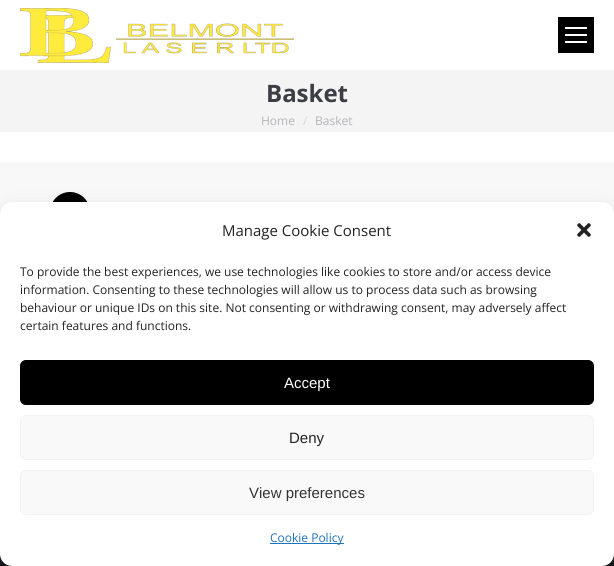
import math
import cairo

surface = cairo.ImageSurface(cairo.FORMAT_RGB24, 614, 566)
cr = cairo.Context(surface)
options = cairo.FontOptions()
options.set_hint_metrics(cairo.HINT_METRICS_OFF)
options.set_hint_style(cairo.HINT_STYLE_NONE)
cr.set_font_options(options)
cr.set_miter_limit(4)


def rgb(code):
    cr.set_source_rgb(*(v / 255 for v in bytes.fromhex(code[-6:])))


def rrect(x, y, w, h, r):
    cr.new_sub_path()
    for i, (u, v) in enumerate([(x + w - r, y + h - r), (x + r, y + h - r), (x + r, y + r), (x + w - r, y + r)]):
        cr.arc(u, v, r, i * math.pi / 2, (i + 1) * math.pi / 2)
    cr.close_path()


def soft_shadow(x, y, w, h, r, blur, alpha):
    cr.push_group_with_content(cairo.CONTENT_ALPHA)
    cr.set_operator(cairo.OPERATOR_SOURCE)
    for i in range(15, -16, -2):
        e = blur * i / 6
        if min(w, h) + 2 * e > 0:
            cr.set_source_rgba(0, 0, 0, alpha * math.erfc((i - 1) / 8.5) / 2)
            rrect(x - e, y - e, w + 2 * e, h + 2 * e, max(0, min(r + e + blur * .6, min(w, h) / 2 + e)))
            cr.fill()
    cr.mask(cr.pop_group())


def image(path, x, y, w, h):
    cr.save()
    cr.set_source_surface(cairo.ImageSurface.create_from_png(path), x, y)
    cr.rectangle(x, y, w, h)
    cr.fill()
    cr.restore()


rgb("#ffffff")
cr.paint()
image("img/1.png", 20, 8, 274, 55)
for x, y, w, h, color in [
    (558, 17, 36, 36, "#000000"),
    (565, 27, 22, 2, "#ffffff"),
    (565, 34, 22, 2, "#ffffff"),
    (565, 41, 22, 2, "#ffffff"),
    (0, 70, 614, 62, "#f4f4f5"),
    (0, 162, 614, 52, "#f8f8f9"),
]:
    rgb(color)
    cr.rectangle(x, y, w, h)
    cr.fill()
rgb("#000000")
cr.arc(70, 212, 20, 0, 2 * math.pi)
cr.fill()
rgb("#1a1c20")
cr.rectangle(0, 554, 614, 12)
cr.fill()
rgb("#000000")
soft_shadow(0, 208, 614, 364, 12, 3, 0.23)
soft_shadow(0, 212, 614, 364, 12, 10, 0.19)
rgb("#ffffff")
rrect(0, 202, 614, 364, 12)
cr.fill()
image("img/2.png", 577, 223, 14, 14)
rgb("#000000")
rrect(20.5, 360.5, 573, 44, 5.5)
cr.fill_preserve()
cr.set_line_width(1)
cr.stroke()
rgb("#f9f9f9")
rrect(20.5, 415.5, 573, 44, 5.5)
cr.fill_preserve()
rgb("#f2f2f2")
cr.stroke()
rgb("#f9f9f9")
rrect(20.5, 470.5, 573, 44, 5.5)
cr.fill_preserve()
rgb("#f2f2f2")
cr.stroke()
rgb("#1e73be")
cr.rectangle(270, 543, 74, 1)
cr.fill()
cr.select_font_face("Open Sans", cairo.FONT_SLANT_NORMAL, cairo.FONT_WEIGHT_BOLD)
cr.set_font_size(24)
rgb("#3c3e45")
cr.move_to(266, 102)
cr.show_text("Basket")
cr.select_font_face("Open Sans")
cr.set_font_size(12)
rgb("#b3b5b9")
cr.move_to(261, 125)
cr.show_text("Home")
rgb("#d4d5d7")
cr.move_to(303, 125)
cr.show_text("/")
rgb("#b3b5b9")
cr.move_to(315, 125)
cr.show_text("Basket")
cr.set_font_size(15)
rgb("#222222")
cr.move_to(222, 236)
cr.show_text("Manage Cookie Consent")
cr.set_font_size(12)
for x, y, s in [
    (20, 276, "To provide the best experiences, we use technologies like cookies to store and/or access device"),
    (20, 294, "information. Consenting to these technologies will allow us to process data such as browsing"),
    (20, 312, "behaviour or unique IDs on this site. Not consenting or withdrawing consent, may adversely affect"),
    (20, 330, "certain features and functions."),
]:
    cr.move_to(x, y)
    cr.show_text(s)
cr.select_font_face("Liberation Sans")
cr.set_font_size(15)
rgb("#ffffff")
cr.move_to(284, 388)
cr.show_text("Accept")
rgb("#222222")
cr.move_to(289, 443)
cr.show_text("Deny")
rgb("#333333")
cr.move_to(249, 498)
cr.show_text("View preferences")
cr.select_font_face("Open Sans")
cr.set_font_size(12)
rgb("#1e73be")
cr.move_to(270, 542)
cr.show_text("Cookie Policy")
surface.write_to_png("page.png")
